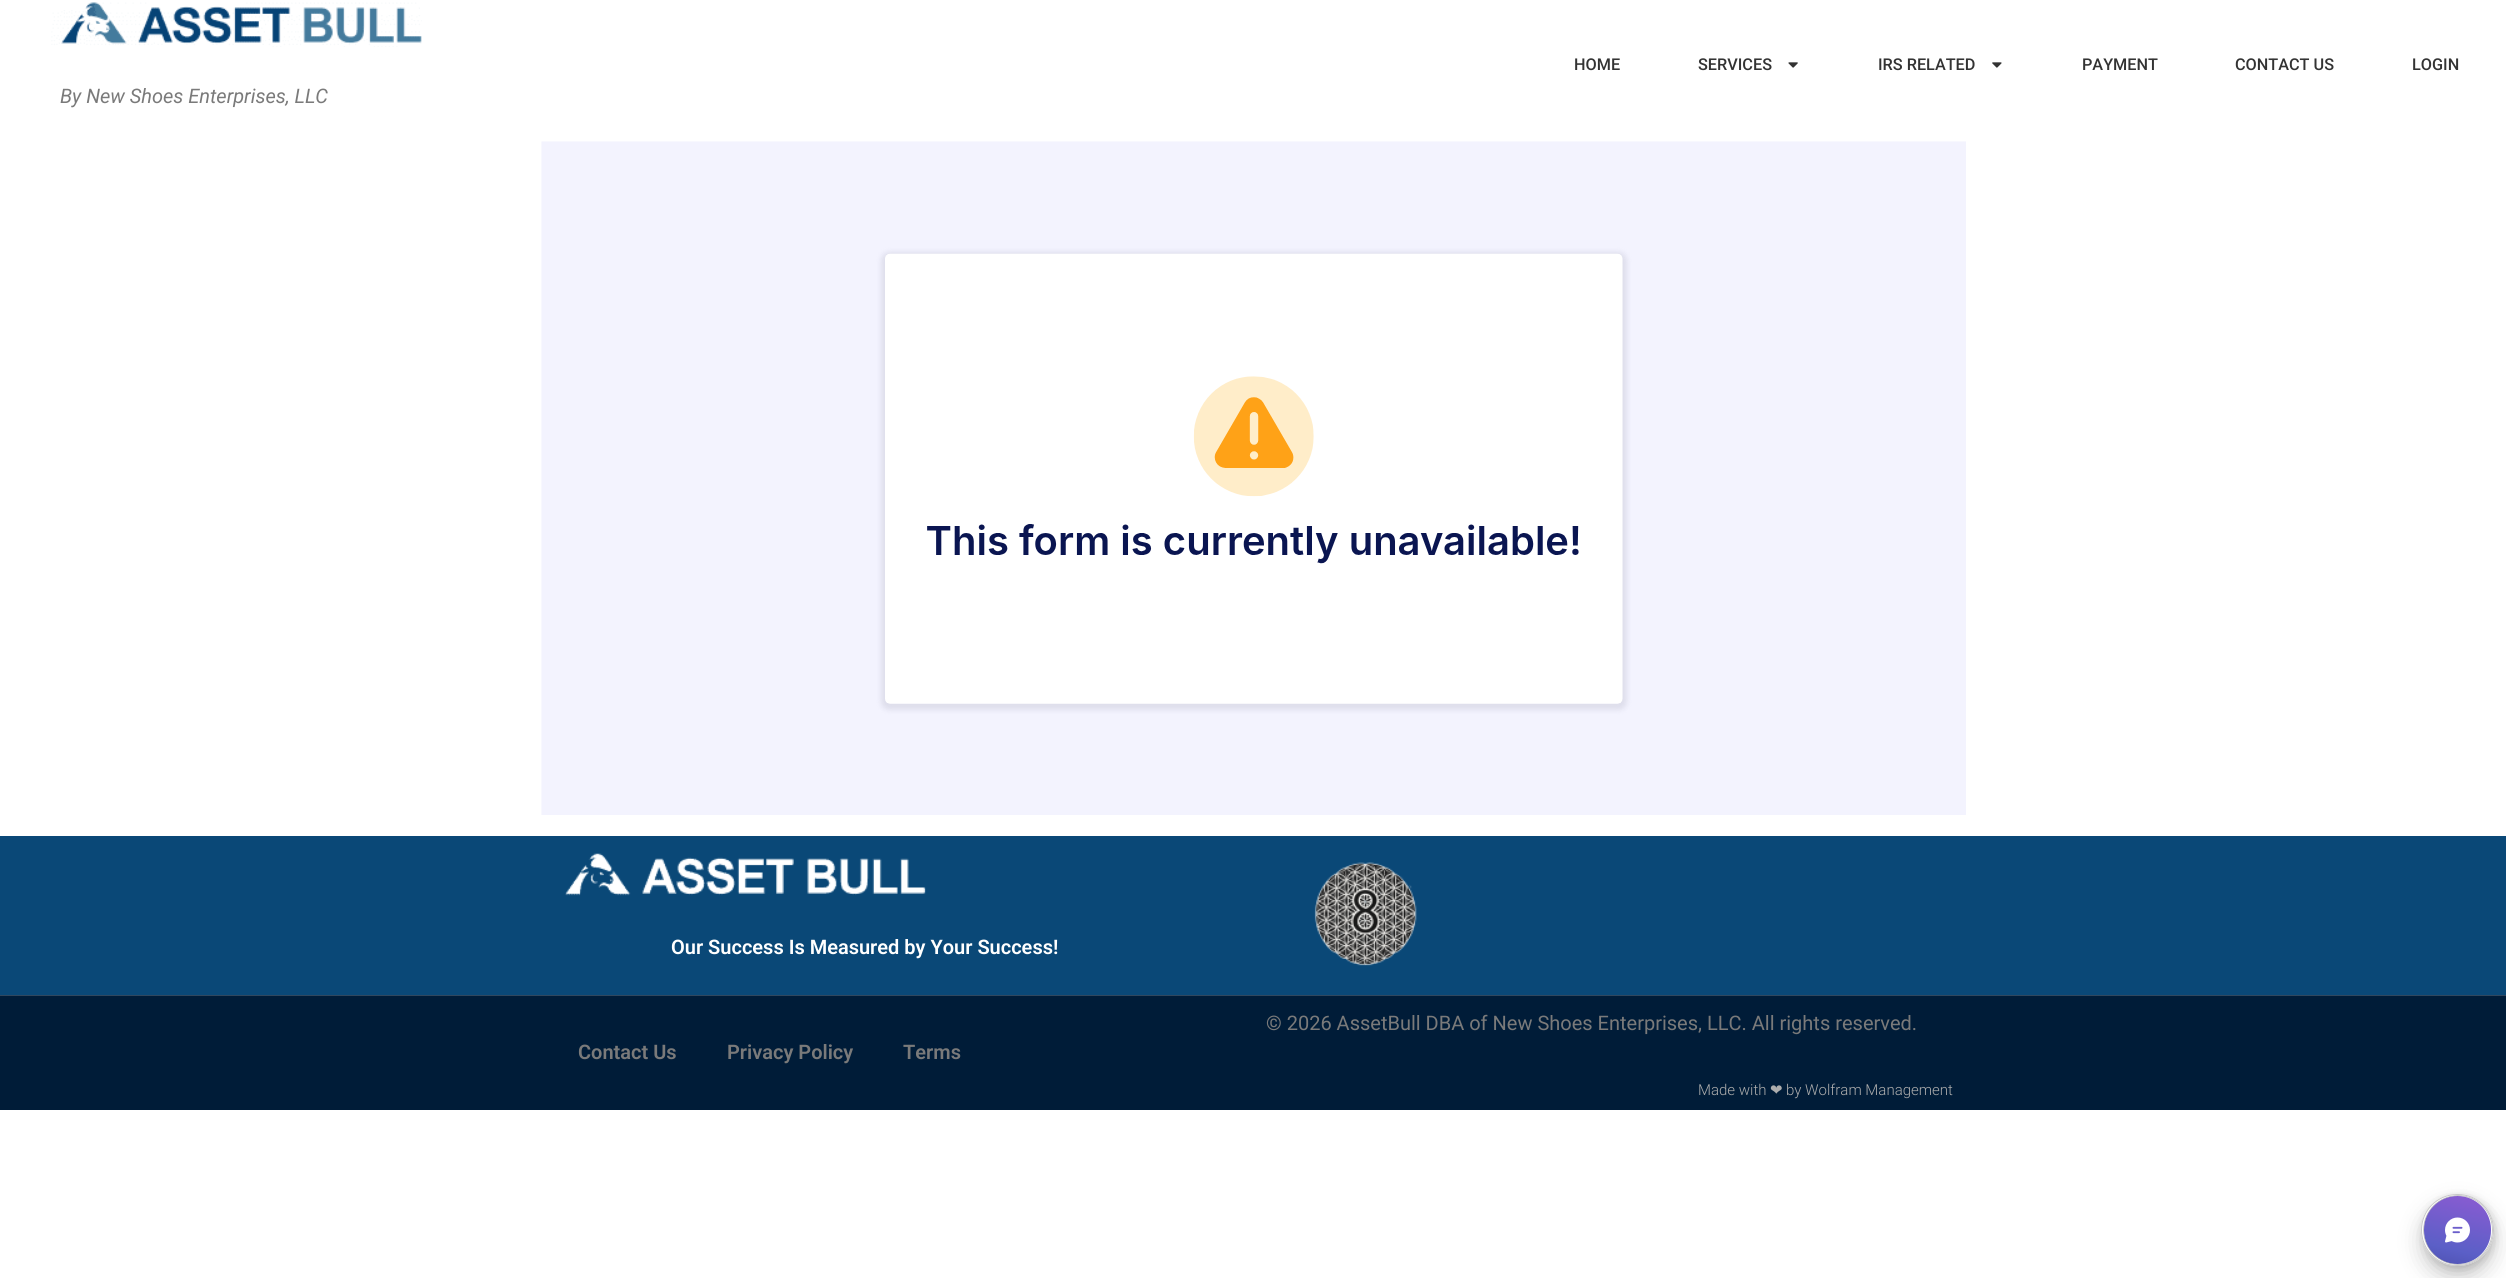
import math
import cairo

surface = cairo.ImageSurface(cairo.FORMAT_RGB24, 2506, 1278)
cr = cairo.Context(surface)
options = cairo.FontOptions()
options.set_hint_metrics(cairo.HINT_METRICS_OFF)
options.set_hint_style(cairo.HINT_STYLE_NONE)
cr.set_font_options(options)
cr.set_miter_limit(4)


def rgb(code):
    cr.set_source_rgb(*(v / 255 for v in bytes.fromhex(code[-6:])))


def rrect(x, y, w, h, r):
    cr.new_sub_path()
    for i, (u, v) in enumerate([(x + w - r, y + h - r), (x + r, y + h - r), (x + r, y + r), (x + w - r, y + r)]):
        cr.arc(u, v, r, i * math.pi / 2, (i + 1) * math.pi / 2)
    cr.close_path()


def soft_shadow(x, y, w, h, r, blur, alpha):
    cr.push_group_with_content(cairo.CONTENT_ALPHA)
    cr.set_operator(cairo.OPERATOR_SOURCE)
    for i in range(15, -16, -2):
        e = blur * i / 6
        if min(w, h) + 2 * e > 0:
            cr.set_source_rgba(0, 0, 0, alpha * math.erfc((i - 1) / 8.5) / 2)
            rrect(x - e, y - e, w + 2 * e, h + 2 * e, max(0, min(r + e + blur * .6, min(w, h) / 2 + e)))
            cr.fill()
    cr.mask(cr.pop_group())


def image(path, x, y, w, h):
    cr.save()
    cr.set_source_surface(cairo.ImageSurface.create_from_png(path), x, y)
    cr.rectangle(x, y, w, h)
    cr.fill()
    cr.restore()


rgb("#ffffff")
cr.paint()
image("img/1.png", 1788, 62, 10, 6)
image("img/2.png", 1992, 62, 10, 6)
image("img/3.png", 51, 2, 371, 45)
image("img/4.png", 541, 141, 1425, 674)
rgb("#0a4877")
cr.rectangle(0, 836, 2506, 159)
cr.fill()
image("img/5.png", 565, 853, 361, 43)
image("img/6.png", 1314, 862, 103, 104)
rgb("#001c38")
cr.rectangle(0, 996, 2506, 114)
cr.fill()
rgb("#30475e")
cr.rectangle(0, 995, 2506, 1)
cr.fill()
cr.save()
cr.set_fill_rule(cairo.FILL_RULE_EVEN_ODD)
cr.new_path()
cr.move_to(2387, 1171)
cr.line_to(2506, 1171)
cr.line_to(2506, 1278)
cr.line_to(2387, 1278)
cr.close_path()
cr.move_to(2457, 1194)
cr.line_to(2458, 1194)
cr.curve_to(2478, 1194, 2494, 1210, 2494, 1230)
cr.curve_to(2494, 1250, 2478, 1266, 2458, 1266)
cr.line_to(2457, 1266)
cr.curve_to(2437, 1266, 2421, 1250, 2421, 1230)
cr.curve_to(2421, 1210, 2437, 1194, 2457, 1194)
cr.close_path()
cr.clip()
rgb("#000000")
soft_shadow(2421, 1205, 73, 73, 36.5, 11, 0.2)
cr.restore()
cr.save()
cr.set_fill_rule(cairo.FILL_RULE_EVEN_ODD)
cr.new_path()
cr.move_to(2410, 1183)
cr.line_to(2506, 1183)
cr.line_to(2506, 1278)
cr.line_to(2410, 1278)
cr.close_path()
cr.move_to(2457, 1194)
cr.line_to(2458, 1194)
cr.curve_to(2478, 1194, 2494, 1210, 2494, 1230)
cr.curve_to(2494, 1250, 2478, 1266, 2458, 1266)
cr.line_to(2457, 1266)
cr.curve_to(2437, 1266, 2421, 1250, 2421, 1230)
cr.curve_to(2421, 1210, 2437, 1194, 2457, 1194)
cr.close_path()
cr.clip()
rgb("#000000")
soft_shadow(2423, 1196, 72, 73, 36, 4, 0.14)
cr.restore()
rrect(2421.5, 1194.5, 72, 71, 35.5)
cr.set_source_rgba(0.459, 0.459, 0.459, 0.4)
cr.set_line_width(1)
cr.stroke()
image("img/7.png", 2423, 1195, 70, 70)
cr.select_font_face("Roboto Medium")
cr.set_font_size(16.25)
rgb("#333333")
for x, y, s in [
    (1574, 70, "HOME"),
    (1698, 70, "SERVICES"),
    (1878, 70, "IRS RELATED"),
    (2082, 70, "PAYMENT"),
    (2235, 70, "CONTACT US"),
    (2412, 70, "LOGIN"),
]:
    cr.move_to(x, y)
    cr.show_text(s)
cr.select_font_face("Roboto", cairo.FONT_SLANT_ITALIC)
cr.set_font_size(20)
rgb("#7a7a7a")
cr.move_to(60, 103)
cr.show_text("By New Shoes Enterprises, LLC")
cr.select_font_face("Roboto SemiBold")
rgb("#ffffff")
cr.move_to(671, 954)
cr.show_text("Our Success Is Measured by Your Success!")
rgb("#7a7a7a")
for x, y, s in [
    (578, 1059, "Contact Us"),
    (727, 1059, "Privacy Policy"),
    (903, 1059, "Terms"),
]:
    cr.move_to(x, y)
    cr.show_text(s)
cr.select_font_face("Roboto")
cr.move_to(1266, 1030)
cr.show_text("© 2026 AssetBull DBA of New Shoes Enterprises, LLC. All rights reserved.")
cr.select_font_face("Roboto Light")
cr.set_font_size(15)
rgb("#adadad")
cr.move_to(1698, 1095)
cr.show_text("Made with")
cr.select_font_face("DejaVu Sans")
cr.move_to(1770, 1095)
cr.show_text("❤")
cr.select_font_face("Roboto Light")
cr.move_to(1786, 1095)
cr.show_text("by Wolfram Management")
surface.write_to_png("page.png")
